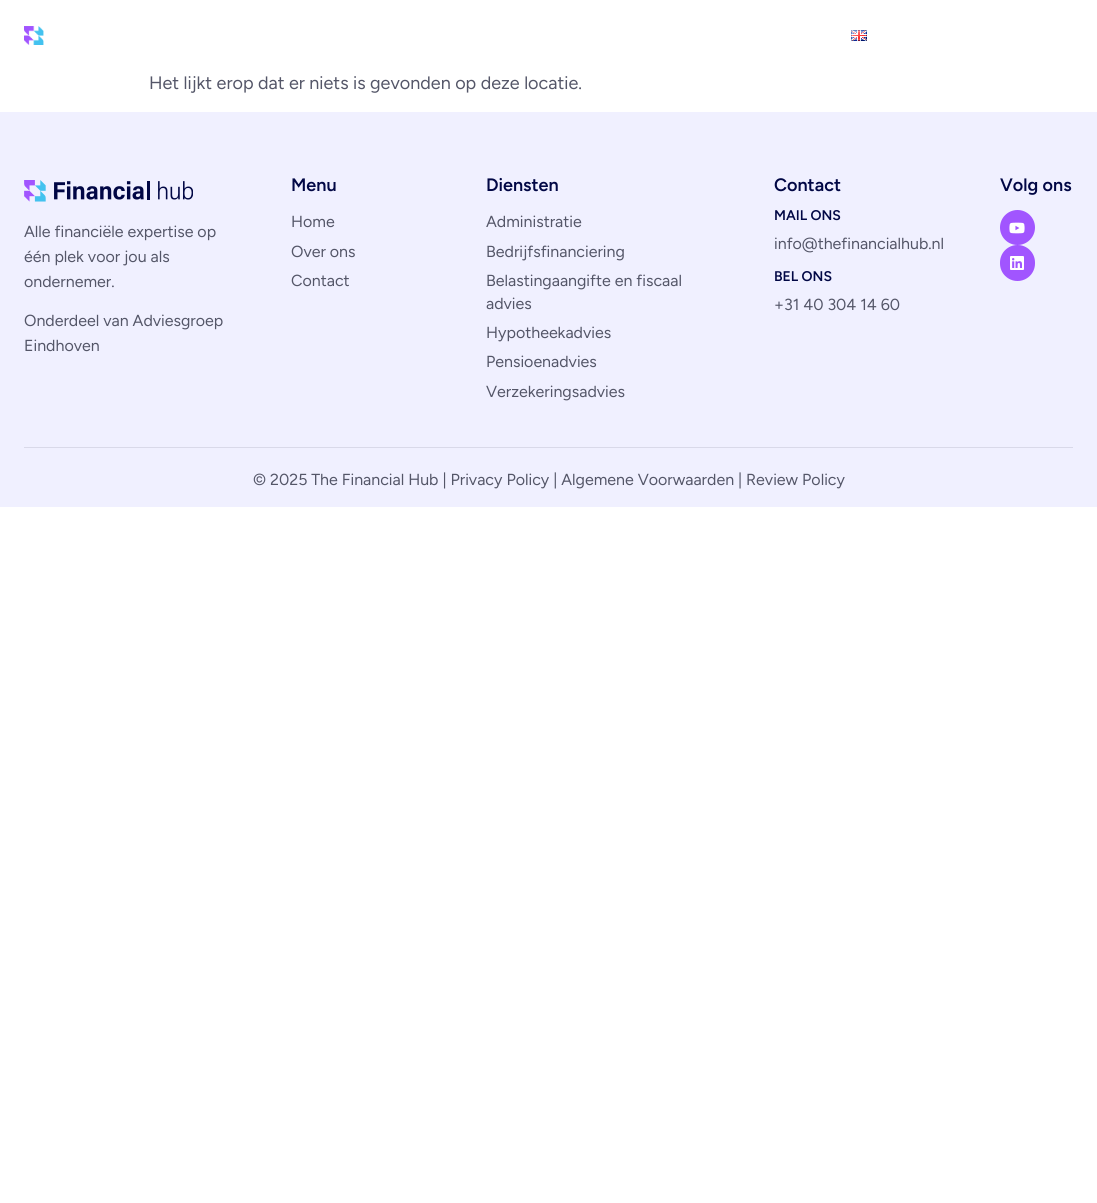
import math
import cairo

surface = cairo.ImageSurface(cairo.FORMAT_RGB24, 1097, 1203)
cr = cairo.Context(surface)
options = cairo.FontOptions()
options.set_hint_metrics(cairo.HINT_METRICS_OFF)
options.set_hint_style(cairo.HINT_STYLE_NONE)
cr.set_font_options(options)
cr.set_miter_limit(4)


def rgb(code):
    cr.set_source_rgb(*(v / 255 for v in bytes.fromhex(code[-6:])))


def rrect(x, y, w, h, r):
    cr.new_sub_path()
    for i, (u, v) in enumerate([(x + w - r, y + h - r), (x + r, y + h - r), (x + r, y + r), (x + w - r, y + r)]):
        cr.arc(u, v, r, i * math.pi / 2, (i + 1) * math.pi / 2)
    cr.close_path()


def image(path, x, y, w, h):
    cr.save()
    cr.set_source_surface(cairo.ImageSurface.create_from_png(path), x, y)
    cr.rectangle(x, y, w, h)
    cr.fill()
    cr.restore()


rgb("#ffffff")
cr.paint()
image("img/1.png", 24, 26, 20, 19)
image("img/2.png", 851, 30, 16, 11)
rgb("#f0f0ff")
cr.rectangle(0, 112, 1097, 395)
cr.fill()
rgb("#a155ff")
cr.arc(1017.5, 227.5, 17.5, 0, 2 * math.pi)
cr.fill()
image("img/3.png", 1009, 222, 16, 12)
rrect(1000, 245, 35, 36, 17.5)
cr.fill()
image("img/4.png", 1010, 256, 14, 14)
image("img/5.png", 24, 180, 169, 22)
rgb("#d9d9e9")
cr.rectangle(24, 447, 1049, 1)
cr.fill()
cr.select_font_face("Figtree")
cr.set_font_size(18)
rgb("#545668")
cr.move_to(149, 89)
cr.show_text("Het lijkt erop dat er niets is gevonden op deze locatie.")
cr.select_font_face("Figtree SemiBold")
rgb("#010745")
cr.move_to(291, 191)
cr.show_text("Menu")
cr.select_font_face("Figtree")
cr.set_font_size(16)
rgb("#545668")
for x, y, s in [
    (291, 227, "Home"),
    (291, 257, "Over ons"),
    (291, 286, "Contact"),
]:
    cr.move_to(x, y)
    cr.show_text(s)
cr.select_font_face("Figtree SemiBold")
cr.set_font_size(18)
rgb("#010745")
cr.move_to(486, 191)
cr.show_text("Diensten")
cr.select_font_face("Figtree")
cr.set_font_size(16)
rgb("#545668")
for x, y, s in [
    (486, 227, "Administratie"),
    (486, 257, "Bedrijfsfinanciering"),
    (486, 286, "Belastingaangifte en fiscaal"),
    (486, 309, "advies"),
    (486, 338, "Hypotheekadvies"),
    (486, 367, "Pensioenadvies"),
    (486, 397, "Verzekeringsadvies"),
]:
    cr.move_to(x, y)
    cr.show_text(s)
cr.select_font_face("Figtree SemiBold")
cr.set_font_size(18)
rgb("#010745")
cr.move_to(774, 191)
cr.show_text("Contact")
cr.set_font_size(14)
cr.move_to(774, 220)
cr.show_text("MAIL ONS")
cr.select_font_face("Figtree")
cr.set_font_size(16)
rgb("#545668")
cr.move_to(774, 249)
cr.show_text("info@thefinancialhub.nl")
cr.select_font_face("Figtree SemiBold")
cr.set_font_size(14)
rgb("#010745")
cr.move_to(774, 281)
cr.show_text("BEL ONS")
cr.select_font_face("Figtree")
cr.set_font_size(16)
rgb("#545668")
cr.move_to(774, 310)
cr.show_text("+31 40 304 14 60")
cr.select_font_face("Figtree SemiBold")
cr.set_font_size(18)
rgb("#010745")
cr.move_to(1000, 191)
cr.show_text("Volg ons")
cr.select_font_face("Figtree")
cr.set_font_size(16)
rgb("#545668")
for x, y, s in [
    (24, 237, "Alle financiële expertise op"),
    (24, 262, "één plek voor jou als"),
    (24, 287, "ondernemer."),
    (24, 326, "Onderdeel van Adviesgroep"),
    (24, 351, "Eindhoven"),
    (253, 485, "© 2025 The Financial Hub | Privacy Policy | Algemene Voorwaarden | Review Policy"),
]:
    cr.move_to(x, y)
    cr.show_text(s)
surface.write_to_png("page.png")
